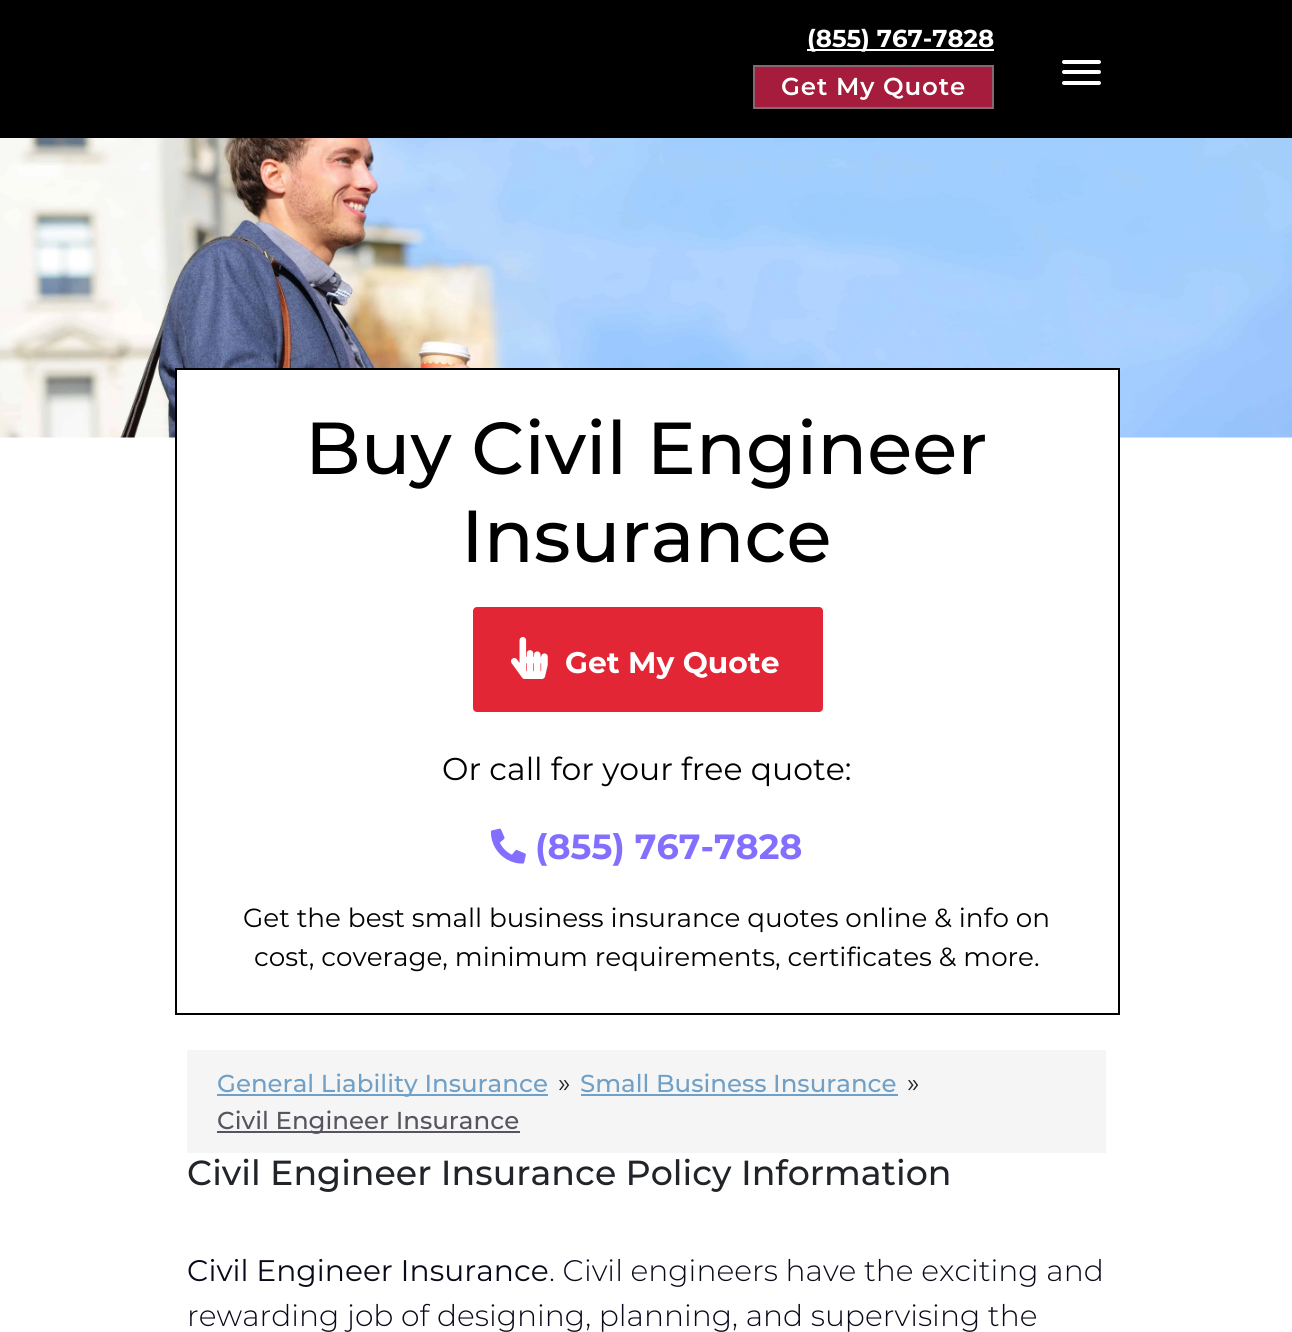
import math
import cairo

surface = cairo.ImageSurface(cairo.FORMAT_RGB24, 1292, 1332)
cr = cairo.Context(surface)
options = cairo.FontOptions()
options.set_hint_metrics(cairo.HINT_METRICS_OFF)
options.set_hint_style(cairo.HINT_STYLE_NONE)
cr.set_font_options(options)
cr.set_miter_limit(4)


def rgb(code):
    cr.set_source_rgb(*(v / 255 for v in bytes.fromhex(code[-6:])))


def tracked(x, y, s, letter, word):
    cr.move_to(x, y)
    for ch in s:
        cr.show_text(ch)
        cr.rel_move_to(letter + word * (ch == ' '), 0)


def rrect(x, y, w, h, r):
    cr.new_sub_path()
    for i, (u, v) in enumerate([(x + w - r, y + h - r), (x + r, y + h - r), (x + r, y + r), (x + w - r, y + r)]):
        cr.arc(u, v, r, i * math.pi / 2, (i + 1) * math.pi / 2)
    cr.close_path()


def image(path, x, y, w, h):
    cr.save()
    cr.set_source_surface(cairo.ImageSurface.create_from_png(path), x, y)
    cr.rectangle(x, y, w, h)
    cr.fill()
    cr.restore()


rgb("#ffffff")
cr.paint()
rgb("#000000")
cr.rectangle(0, 0, 1292, 138)
cr.fill()
rgb("#ffffff")
cr.rectangle(807, 49, 187, 2)
cr.fill()
rrect(1062, 60, 39, 4, 2)
cr.fill()
rrect(1062, 70, 39, 4, 2)
cr.fill()
rrect(1062, 81, 39, 4, 2)
cr.fill()
rgb("#a51c3c")
cr.rectangle(754, 66, 239, 42)
cr.fill_preserve()
rgb("#85696f")
cr.stroke()
image("img/1.png", 0, 138, 1292, 300)
rgb("#ffffff")
cr.rectangle(177, 370, 941, 68)
cr.fill()
cr.rectangle(176, 369, 943, 645)
rgb("#000000")
cr.stroke()
rgb("#e32636")
rrect(473, 607, 350, 105, 4)
cr.fill()
image("img/2.png", 511, 637, 37, 42)
image("img/3.png", 490, 828, 36, 36)
for x, y, w, h, color in [
    (187, 1050, 919, 103, "#f5f5f5"),
    (217, 1094, 331, 2, "#71a0c7"),
    (581, 1094, 317, 2, "#71a0c7"),
    (217, 1131, 303, 2, "#58545f"),
]:
    rgb(color)
    cr.rectangle(x, y, w, h)
    cr.fill()
cr.select_font_face("Montserrat", cairo.FONT_SLANT_NORMAL, cairo.FONT_WEIGHT_BOLD)
cr.set_font_size(24.5)
rgb("#ffffff")
cr.move_to(807, 47)
cr.show_text("(855) 767-7828")
cr.select_font_face("Montserrat SemiBold")
tracked(781, 95, "Get My Quote", 0.9, 0)
cr.select_font_face("Montserrat Medium")
cr.set_font_size(73.5)
rgb("#000000")
cr.move_to(305, 474)
cr.show_text("Buy Civil Engineer")
cr.move_to(461, 562)
cr.show_text("Insurance")
cr.select_font_face("Montserrat", cairo.FONT_SLANT_NORMAL, cairo.FONT_WEIGHT_BOLD)
cr.set_font_size(29.75)
rgb("#ffffff")
cr.move_to(565, 673)
cr.show_text("Get My Quote")
cr.select_font_face("Montserrat")
cr.set_font_size(31.5)
rgb("#000000")
cr.move_to(442, 780)
cr.show_text("Or call for your free quote:")
cr.select_font_face("Montserrat", cairo.FONT_SLANT_NORMAL, cairo.FONT_WEIGHT_BOLD)
cr.set_font_size(35)
rgb("#836fff")
cr.move_to(535, 859)
cr.show_text("(855) 767-7828")
cr.select_font_face("Montserrat")
cr.set_font_size(26.25)
rgb("#000000")
cr.move_to(243, 927)
cr.show_text("Get the best small business insurance quotes online & info on")
cr.move_to(254, 966)
cr.show_text("cost, coverage, minimum requirements, certificates & more.")
cr.select_font_face("Montserrat Medium")
cr.set_font_size(24.5)
rgb("#71a0c7")
cr.move_to(217, 1092)
cr.show_text("General Liability Insurance")
cr.select_font_face("Montserrat")
cr.set_font_size(26.25)
rgb("#212529")
cr.move_to(558, 1092)
cr.show_text("»")
cr.select_font_face("Montserrat Medium")
cr.set_font_size(24.5)
rgb("#71a0c7")
cr.move_to(580, 1092)
cr.show_text("Small Business Insurance")
cr.select_font_face("Montserrat")
cr.set_font_size(26.25)
rgb("#212529")
cr.move_to(907, 1092)
cr.show_text("»")
cr.select_font_face("Montserrat Medium")
cr.set_font_size(24.5)
rgb("#58545f")
cr.move_to(217, 1129)
cr.show_text("Civil Engineer Insurance")
cr.set_font_size(34.8)
rgb("#212529")
cr.move_to(187, 1185)
cr.show_text("Civil Engineer Insurance Policy Information")
cr.select_font_face("Montserrat")
cr.set_font_size(29.75)
rgb("#090a19")
cr.move_to(187, 1281)
cr.show_text("Civil Engineer Insurance")
cr.select_font_face("Montserrat Light")
cr.move_to(549, 1281)
cr.show_text(". Civil engineers have the exciting and")
cr.move_to(187, 1326)
cr.show_text("rewarding job of designing, planning, and supervising the")
surface.write_to_png("page.png")
